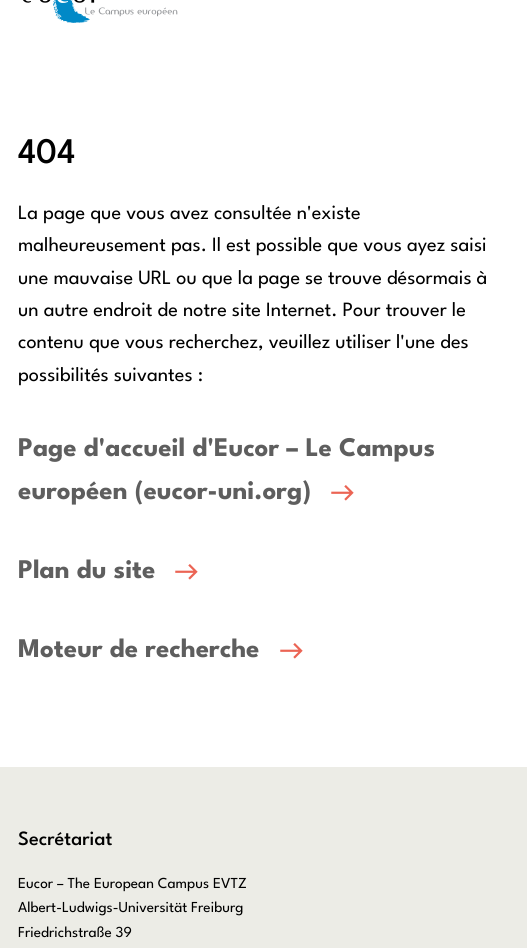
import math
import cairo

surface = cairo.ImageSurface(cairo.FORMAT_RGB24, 527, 948)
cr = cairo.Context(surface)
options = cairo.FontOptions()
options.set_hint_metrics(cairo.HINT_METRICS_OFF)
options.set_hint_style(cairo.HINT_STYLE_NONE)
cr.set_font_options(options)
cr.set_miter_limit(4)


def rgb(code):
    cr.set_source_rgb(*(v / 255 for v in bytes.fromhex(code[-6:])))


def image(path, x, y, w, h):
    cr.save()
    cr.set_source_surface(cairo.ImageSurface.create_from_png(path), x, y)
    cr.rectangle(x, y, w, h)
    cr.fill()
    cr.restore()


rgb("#ffffff")
cr.paint()
image("img/1.png", 23, 0, 155, 23)
image("img/2.png", 331, 485, 23, 16)
image("img/2.png", 175, 564, 23, 16)
image("img/2.png", 280, 643, 23, 16)
rgb("#ecece6")
cr.rectangle(0, 767, 527, 181)
cr.fill()
cr.select_font_face("League Spartan Thin")
cr.set_font_size(36)
rgb("#000000")
cr.move_to(18, 163)
cr.show_text("404")
cr.select_font_face("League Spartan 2 Thin")
cr.set_font_size(20.25)
for x, y, s in [
    (18, 219, "La page que vous avez consultée n'existe"),
    (18, 251, "malheureusement pas. Il est possible que vous ayez saisi"),
    (18, 284, "une mauvaise URL ou que la page se trouve désormais à"),
    (18, 316, "un autre endroit de notre site Internet. Pour trouver le"),
    (18, 348, "contenu que vous recherchez, veuillez utiliser l'une des"),
    (18, 381, "possibilités suivantes :"),
]:
    cr.move_to(x, y)
    cr.show_text(s)
cr.select_font_face("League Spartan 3 Thin")
cr.set_font_size(26.9)
rgb("#5e5e5e")
for x, y, s in [
    (18, 456, "Page d'accueil d'Eucor – Le Campus"),
    (18, 499, "européen (eucor-uni.org)"),
    (18, 578, "Plan du site"),
    (18, 657, "Moteur de recherche"),
]:
    cr.move_to(x, y)
    cr.show_text(s)
cr.select_font_face("League Spartan Thin")
cr.set_font_size(20.25)
rgb("#000000")
cr.move_to(18, 845)
cr.show_text("Secrétariat")
cr.select_font_face("League Spartan 2 Thin")
cr.set_font_size(15.25)
for x, y, s in [
    (18, 888, "Eucor – The European Campus EVTZ"),
    (18, 912, "Albert-Ludwigs-Universität Freiburg"),
    (18, 937, "Friedrichstraße 39"),
]:
    cr.move_to(x, y)
    cr.show_text(s)
surface.write_to_png("page.png")
